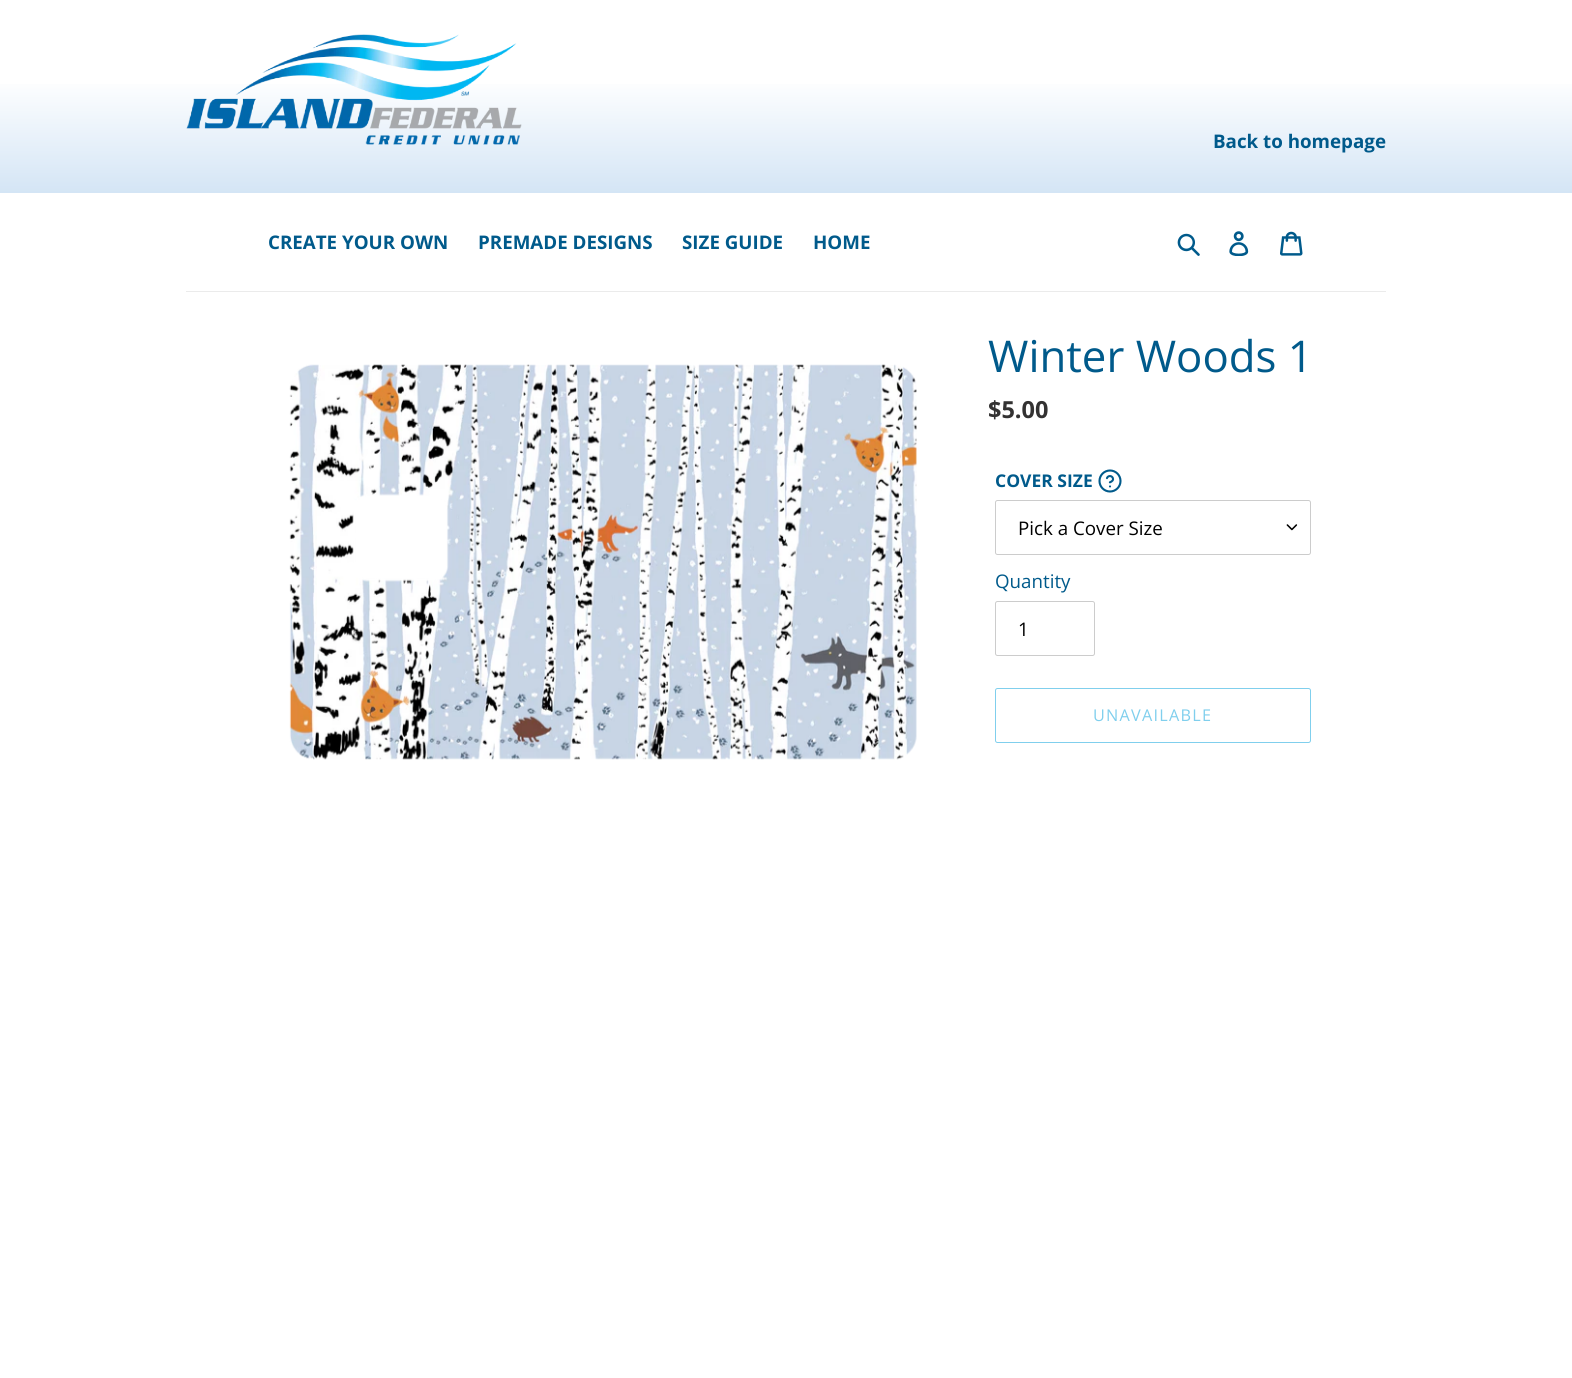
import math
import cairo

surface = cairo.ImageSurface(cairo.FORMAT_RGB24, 1572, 1378)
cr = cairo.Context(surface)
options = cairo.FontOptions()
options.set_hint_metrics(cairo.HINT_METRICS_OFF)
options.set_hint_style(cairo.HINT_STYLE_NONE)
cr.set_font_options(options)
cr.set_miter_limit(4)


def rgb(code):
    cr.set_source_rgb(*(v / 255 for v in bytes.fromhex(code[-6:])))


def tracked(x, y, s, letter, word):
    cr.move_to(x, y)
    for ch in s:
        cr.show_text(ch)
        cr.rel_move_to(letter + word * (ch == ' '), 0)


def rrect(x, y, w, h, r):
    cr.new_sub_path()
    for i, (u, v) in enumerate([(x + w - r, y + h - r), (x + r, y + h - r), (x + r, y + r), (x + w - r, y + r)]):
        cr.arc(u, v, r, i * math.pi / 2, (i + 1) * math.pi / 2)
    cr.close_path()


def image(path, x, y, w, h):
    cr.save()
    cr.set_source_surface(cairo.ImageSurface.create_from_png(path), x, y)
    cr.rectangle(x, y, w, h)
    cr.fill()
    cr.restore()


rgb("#ffffff")
cr.paint()
gradient = cairo.LinearGradient(786, 0, 786, 193)
gradient.add_color_stop_rgba(0.4, 1, 1, 1, 1)
gradient.add_color_stop_rgba(1, 0.831, 0.898, 0.961, 1)
cr.set_source(gradient)
cr.rectangle(0, 84, 1572, 109)
cr.fill()
image("img/1.png", 186, 34, 336, 111)
rgb("#ebebeb")
cr.rectangle(186, 291, 1200, 1)
cr.fill()
image("img/2.png", 1177, 233, 23, 23)
image("img/3.png", 1229, 231, 20, 25)
image("img/4.png", 1280, 231, 23, 25)
image("img/5.png", 289, 364, 628, 396)
image("img/6.png", 1098, 469, 24, 24)
image("img/7.png", 1286, 524, 12, 7)
rrect(995.5, 500.5, 315, 54, 2)
rgb("#cccccc")
cr.set_line_width(1)
cr.stroke()
rrect(995.5, 601.5, 99, 54, 2)
cr.stroke()
rrect(995.5, 688.5, 315, 54, 2)
rgb("#80cfed")
cr.stroke()
cr.select_font_face("Open Sans", cairo.FONT_SLANT_NORMAL, cairo.FONT_WEIGHT_BOLD)
cr.set_font_size(18.75)
rgb("#005a8b")
for x, y, s in [
    (1213, 148, "Back to homepage"),
    (268, 249, "CREATE YOUR OWN"),
    (478, 249, "PREMADE DESIGNS"),
    (682, 249, "SIZE GUIDE"),
    (813, 249, "HOME"),
]:
    cr.move_to(x, y)
    cr.show_text(s)
cr.select_font_face("Open Sans")
cr.set_font_size(43.75)
cr.move_to(988, 372)
cr.show_text("Winter Woods 1")
cr.select_font_face("Open Sans", cairo.FONT_SLANT_NORMAL, cairo.FONT_WEIGHT_BOLD)
cr.set_font_size(23.5)
rgb("#333232")
cr.move_to(988, 418)
cr.show_text("$5.00")
cr.set_font_size(17.5)
rgb("#005a8b")
cr.move_to(995, 487)
cr.show_text("COVER SIZE")
cr.select_font_face("Open Sans")
cr.set_font_size(18.75)
rgb("#000000")
cr.move_to(1018, 535)
cr.show_text("Pick a Cover Size")
rgb("#005a8b")
cr.move_to(995, 588)
cr.show_text("Quantity")
rgb("#000000")
cr.move_to(1018, 636)
cr.show_text("1")
cr.set_font_size(16.25)
rgb("#80cfed")
tracked(1093, 721, "UNAVAILABLE", 1.25, 0)
surface.write_to_png("page.png")
